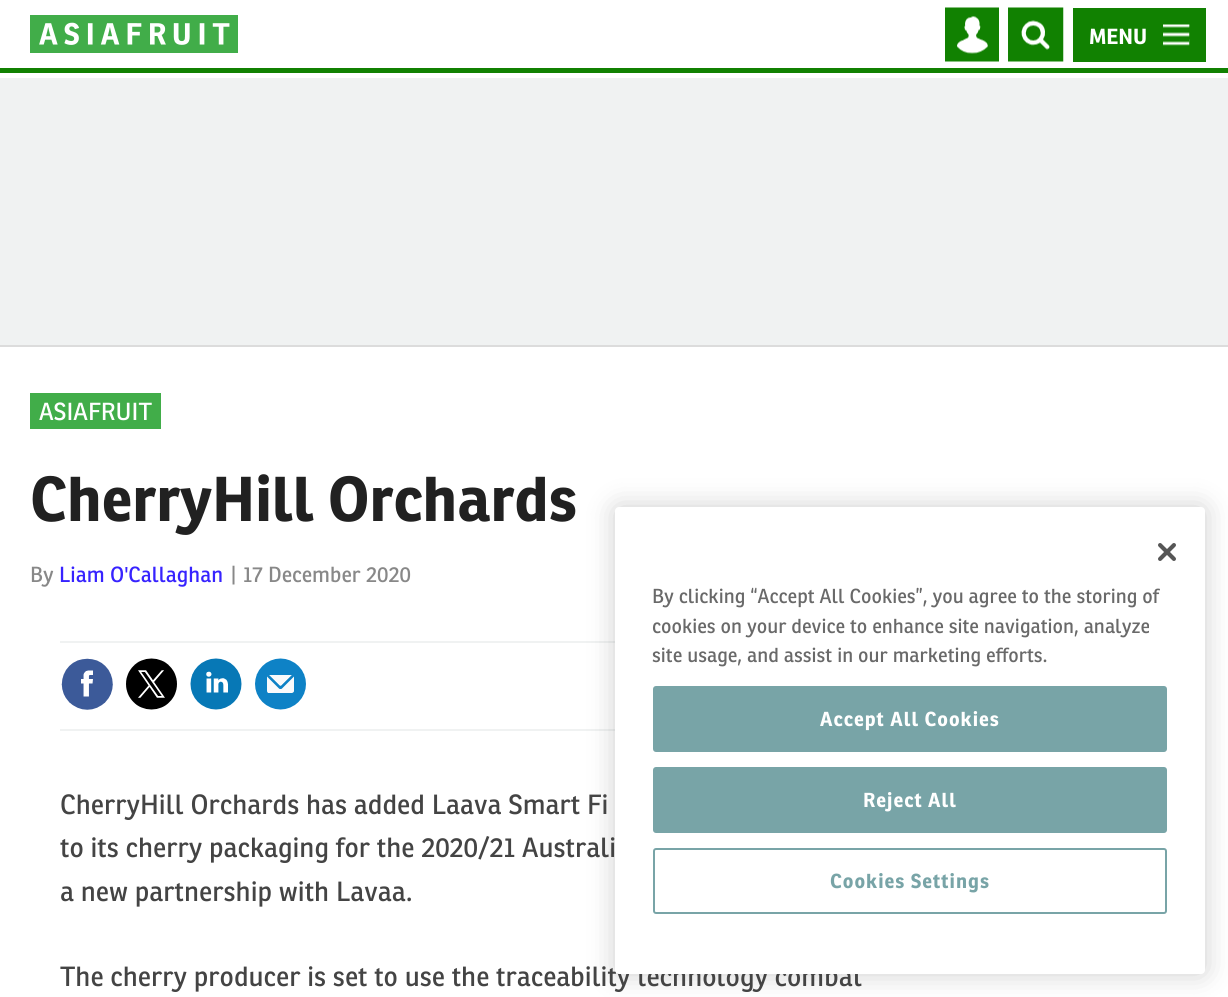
import math
import cairo

surface = cairo.ImageSurface(cairo.FORMAT_RGB24, 1228, 997)
cr = cairo.Context(surface)
options = cairo.FontOptions()
options.set_hint_metrics(cairo.HINT_METRICS_OFF)
options.set_hint_style(cairo.HINT_STYLE_NONE)
cr.set_font_options(options)
cr.set_miter_limit(4)


def rgb(code):
    cr.set_source_rgb(*(v / 255 for v in bytes.fromhex(code[-6:])))


def tracked(x, y, s, letter, word):
    cr.move_to(x, y)
    for ch in s:
        cr.show_text(ch)
        cr.rel_move_to(letter + word * (ch == ' '), 0)


def rrect(x, y, w, h, r):
    cr.new_sub_path()
    for i, (u, v) in enumerate([(x + w - r, y + h - r), (x + r, y + h - r), (x + r, y + r), (x + w - r, y + r)]):
        cr.arc(u, v, r, i * math.pi / 2, (i + 1) * math.pi / 2)
    cr.close_path()


def soft_shadow(x, y, w, h, r, blur, alpha):
    cr.push_group_with_content(cairo.CONTENT_ALPHA)
    cr.set_operator(cairo.OPERATOR_SOURCE)
    for i in range(15, -16, -2):
        e = blur * i / 6
        if min(w, h) + 2 * e > 0:
            cr.set_source_rgba(0, 0, 0, alpha * math.erfc((i - 1) / 8.5) / 2)
            rrect(x - e, y - e, w + 2 * e, h + 2 * e, max(0, min(r + e + blur * .6, min(w, h) / 2 + e)))
            cr.fill()
    cr.mask(cr.pop_group())


def image(path, x, y, w, h):
    cr.save()
    cr.set_source_surface(cairo.ImageSurface.create_from_png(path), x, y)
    cr.rectangle(x, y, w, h)
    cr.fill()
    cr.restore()


rgb("#ffffff")
cr.paint()
image("img/1.png", 30, 15, 208, 38)
rgb("#118101")
cr.rectangle(0, 68, 1228, 5)
cr.fill()
image("img/2.png", 945, 7, 54, 55)
image("img/3.png", 1008, 7, 56, 55)
cr.rectangle(1073, 8, 133, 54)
cr.fill()
image("img/4.png", 1163, 24, 27, 22)
for x, y, w, h, color in [
    (0, 78, 1228, 267, "#f0f2f2"),
    (0, 345, 1228, 2, "#dcdcdc"),
    (30, 393, 131, 36, "#41ad49"),
    (60, 641, 555, 2, "#f0f2f2"),
    (60, 729, 555, 2, "#f0f2f2"),
]:
    rgb(color)
    cr.rectangle(x, y, w, h)
    cr.fill()
image("img/5.png", 61, 658, 52, 52)
image("img/6.png", 126, 658, 51, 52)
image("img/7.png", 190, 658, 52, 52)
image("img/8.png", 255, 658, 51, 52)
rgb("#000000")
soft_shadow(615, 507, 590, 467, 4, 13.5, 0.2)
cr.select_font_face("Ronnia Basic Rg", cairo.FONT_SLANT_NORMAL, cairo.FONT_WEIGHT_BOLD)
cr.set_font_size(21.25)
rgb("#ffffff")
cr.move_to(1089, 44)
cr.show_text("MENU")
cr.select_font_face("Ronnia Basic Rg")
cr.set_font_size(24)
cr.move_to(39, 420)
cr.show_text("ASIAFRUIT")
cr.select_font_face("Ronnia Basic Rg", cairo.FONT_SLANT_NORMAL, cairo.FONT_WEIGHT_BOLD)
cr.set_font_size(61.5)
rgb("#212121")
cr.move_to(30, 521)
cr.show_text("CherryHill Orchards")
cr.select_font_face("Ronnia Basic Rg")
cr.set_font_size(21.25)
rgb("#888888")
cr.move_to(30, 582)
cr.show_text("By")
rgb("#3723ff")
cr.move_to(59, 582)
cr.show_text("Liam O'Callaghan")
rgb("#888888")
cr.move_to(231, 582)
cr.show_text("|")
cr.move_to(243, 582)
cr.show_text("17 December 2020")
cr.set_font_size(27)
rgb("#444444")
for x, y, s in [
    (60, 814, "CherryHill Orchards has added Laava Smart Fi"),
    (60, 857, "to its cherry packaging for the 2020/21 Australi"),
    (60, 901, "a new partnership with Lavaa."),
    (60, 986, "The cherry producer is set to use the traceability technology combat"),
]:
    cr.move_to(x, y)
    cr.show_text(s)
rgb("#ffffff")
rrect(615, 507, 590, 467, 4)
cr.fill()
image("img/9.png", 1158, 543, 18, 18)
cr.set_font_size(19.7)
rgb("#696969")
for x, y, s in [
    (652, 603, "By clicking “Accept All Cookies”, you agree to the storing of"),
    (652, 633, "cookies on your device to enhance site navigation, analyze"),
    (652, 662, "site usage, and assist in our marketing efforts."),
]:
    cr.move_to(x, y)
    cr.show_text(s)
rgb("#78a4a7")
rrect(654, 687, 512, 64, 2)
cr.fill_preserve()
cr.stroke()
cr.select_font_face("Ronnia Basic Rg", cairo.FONT_SLANT_NORMAL, cairo.FONT_WEIGHT_BOLD)
rgb("#ffffff")
tracked(820, 726, "Accept All Cookies", 1, 0)
rgb("#78a4a7")
rrect(654, 768, 512, 64, 2)
cr.fill_preserve()
cr.stroke()
rgb("#ffffff")
tracked(863, 807, "Reject All", 1, 0)
rrect(654, 849, 512, 64, 2)
rgb("#78a4a7")
cr.stroke()
tracked(830, 888, "Cookies Settings", 1, 0)
surface.write_to_png("page.png")
